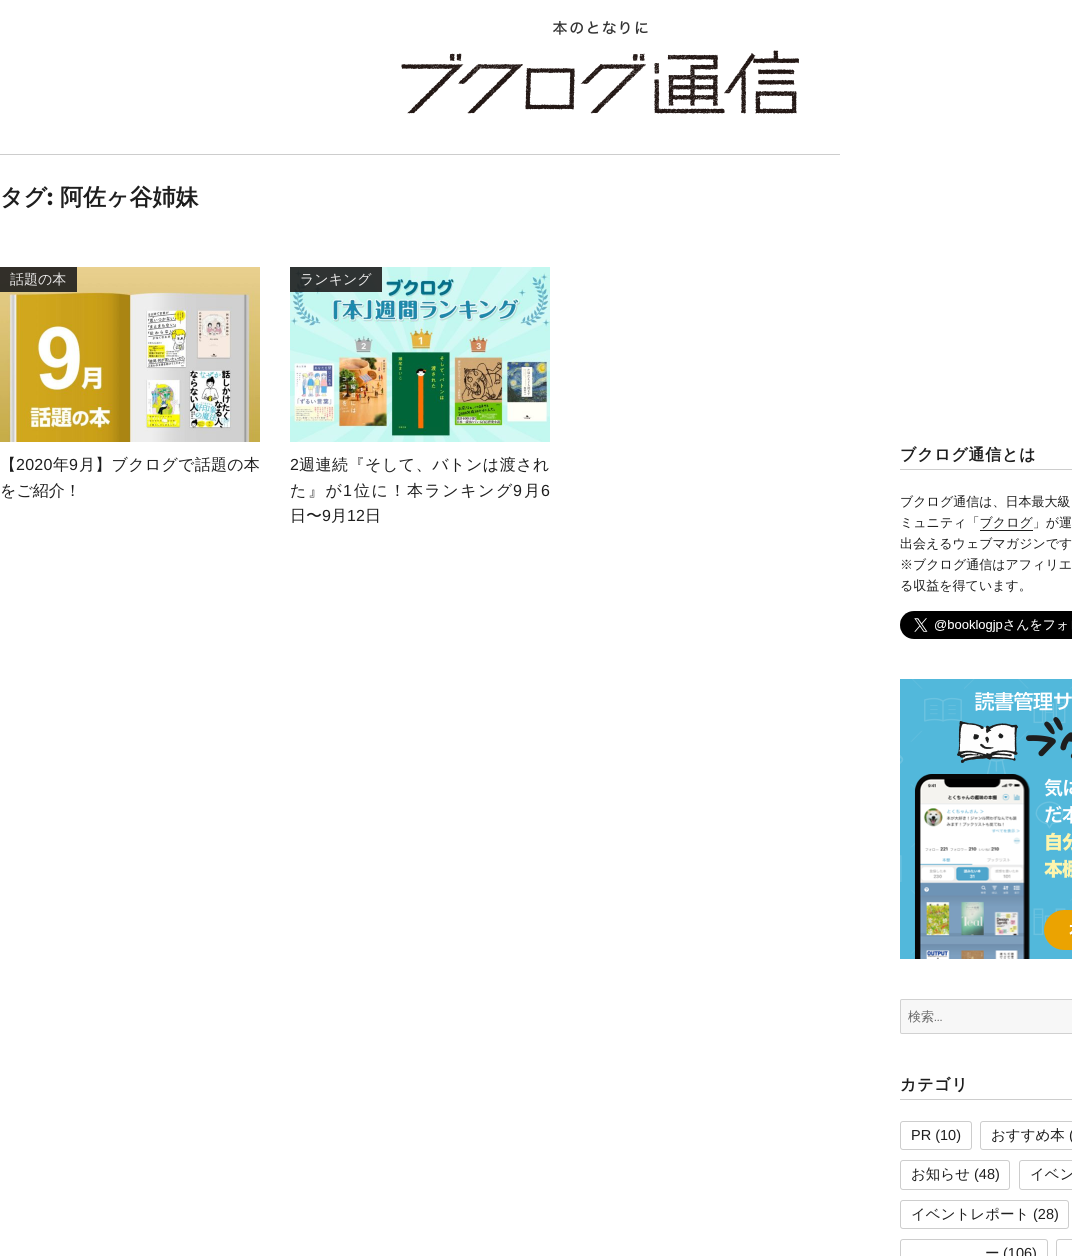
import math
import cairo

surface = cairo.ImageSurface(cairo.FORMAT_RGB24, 1072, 1256)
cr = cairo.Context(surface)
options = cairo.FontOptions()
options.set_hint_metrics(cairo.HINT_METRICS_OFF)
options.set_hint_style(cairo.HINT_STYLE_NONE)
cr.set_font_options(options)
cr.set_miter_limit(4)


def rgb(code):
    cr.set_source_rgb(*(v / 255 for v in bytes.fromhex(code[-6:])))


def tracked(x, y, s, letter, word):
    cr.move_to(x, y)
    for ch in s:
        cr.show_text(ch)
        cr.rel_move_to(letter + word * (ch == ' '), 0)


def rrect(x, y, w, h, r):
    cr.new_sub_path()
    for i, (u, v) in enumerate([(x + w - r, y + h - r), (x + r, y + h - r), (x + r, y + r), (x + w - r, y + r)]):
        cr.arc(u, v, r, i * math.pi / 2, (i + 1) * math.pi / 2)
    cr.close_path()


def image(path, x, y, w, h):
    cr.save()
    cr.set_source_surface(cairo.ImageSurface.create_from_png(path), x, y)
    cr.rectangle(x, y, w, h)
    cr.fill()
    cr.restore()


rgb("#ffffff")
cr.paint()
image("img/1.png", 553, 20, 95, 15)
image("img/2.png", 401, 50, 398, 64)
rgb("#cdcdcd")
cr.rectangle(0, 154, 840, 1)
cr.fill()
image("img/3.png", 0, 267, 260, 175)
cr.set_source_rgba(0.118, 0.118, 0.118, 0.9)
cr.rectangle(0, 267, 77, 25)
cr.fill()
image("img/4.png", 290, 267, 260, 175)
cr.rectangle(290, 267, 92, 25)
cr.fill()
rgb("#cdcdcd")
cr.rectangle(900, 469, 172, 1)
cr.fill()
rgb("#1e1e1e")
cr.rectangle(980, 530, 53, 1)
cr.fill()
image("img/5.png", 900, 611, 172, 28)
image("img/6.png", 900, 679, 172, 280)
rgb("#f7f7f7")
cr.new_path()
cr.move_to(902, 999.5)
cr.line_to(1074.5, 999.5)
cr.line_to(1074.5, 1033.5)
cr.line_to(902, 1033.5)
cr.curve_to(901, 1033.5, 900.5, 1033, 900.5, 1032)
cr.line_to(900.5, 1001)
cr.curve_to(900.5, 1000, 901, 999.5, 902, 999.5)
cr.close_path()
cr.fill_preserve()
rgb("#d1d1d1")
cr.set_line_width(1)
cr.stroke()
rgb("#cdcdcd")
cr.rectangle(900, 1099, 172, 1)
cr.fill()
rrect(900.5, 1121.5, 71, 28, 2.5)
cr.stroke()
rrect(980.5, 1121.5, 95, 28, 2.5)
cr.stroke()
rrect(900.5, 1160.5, 109, 29, 2.5)
cr.stroke()
rrect(1019.5, 1160.5, 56, 29, 2.5)
cr.stroke()
rrect(900.5, 1200.5, 168, 28, 2.5)
cr.stroke()
rrect(900.5, 1239.5, 147, 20, 2.5)
cr.stroke()
rrect(1056.5, 1239.5, 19, 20, 2.5)
cr.stroke()
cr.select_font_face("WenQuanYi Zen Hei", cairo.FONT_SLANT_NORMAL, cairo.FONT_WEIGHT_BOLD)
cr.set_font_size(23)
rgb("#1e1e1e")
cr.move_to(0, 205)
cr.show_text("タグ")
cr.select_font_face("Montserrat Thin")
cr.move_to(47, 205)
cr.show_text(":")
cr.select_font_face("WenQuanYi Zen Hei", cairo.FONT_SLANT_NORMAL, cairo.FONT_WEIGHT_BOLD)
cr.move_to(60, 205)
cr.show_text("阿佐ヶ谷姉妹")
cr.select_font_face("WenQuanYi Zen Hei Medium")
cr.set_font_size(14)
rgb("#ebeaea")
cr.move_to(10, 284)
cr.show_text("話題の本")
cr.set_font_size(16)
rgb("#1e1e1e")
tracked(0, 470, "【", 0.25, 0)
cr.select_font_face("Liberation Sans")
tracked(16, 470, "2020", 0.25, 0)
cr.select_font_face("WenQuanYi Zen Hei Medium")
tracked(53, 470, "年", 0.25, 0)
cr.select_font_face("Liberation Sans")
tracked(69, 470, "9", 0.25, 0)
cr.select_font_face("WenQuanYi Zen Hei Medium")
tracked(79, 470, "月】ブクログで話題の本", 0.25, 0)
cr.move_to(0, 496)
cr.show_text("をご紹介！")
cr.set_font_size(14)
rgb("#ebeaea")
cr.move_to(300, 284)
cr.show_text("ランキング")
cr.select_font_face("Liberation Sans")
cr.set_font_size(16)
rgb("#1e1e1e")
tracked(290, 470, "2", 0.5, 0)
cr.select_font_face("WenQuanYi Zen Hei Medium")
tracked(299, 470, "週連続『そして、バトンは渡され", 0.5, 0)
tracked(290, 496, "た』が", 1.5, 0)
cr.select_font_face("Liberation Sans")
tracked(343, 496, "1", 1.5, 0)
cr.select_font_face("WenQuanYi Zen Hei Medium")
tracked(354, 496, "位に！本ランキング", 1.5, 0)
cr.select_font_face("Liberation Sans")
tracked(513, 496, "9", 1.5, 0)
cr.select_font_face("WenQuanYi Zen Hei Medium")
tracked(524, 496, "月", 1.5, 0)
cr.select_font_face("Liberation Sans")
tracked(541, 496, "6", 1.5, 0)
cr.select_font_face("WenQuanYi Zen Hei Medium")
cr.move_to(290, 521)
cr.show_text("日〜")
cr.select_font_face("Liberation Sans")
cr.move_to(322, 521)
cr.show_text("9")
cr.select_font_face("WenQuanYi Zen Hei Medium")
cr.move_to(331, 521)
cr.show_text("月")
cr.select_font_face("Liberation Sans")
cr.move_to(347, 521)
cr.show_text("12")
cr.select_font_face("WenQuanYi Zen Hei Medium")
cr.move_to(365, 521)
cr.show_text("日")
cr.select_font_face("WenQuanYi Zen Hei", cairo.FONT_SLANT_NORMAL, cairo.FONT_WEIGHT_BOLD)
tracked(900, 460, "ブクログ通信とは", 0.75, 0)
cr.select_font_face("WenQuanYi Zen Hei Medium")
cr.set_font_size(13)
for x, y, s in [
    (900, 506, "ブクログ通信は、日本最大級"),
    (900, 527, "ミュニティ「ブクログ」が運"),
    (900, 548, "出会えるウェブマガジンです"),
    (900, 569, "※ブクログ通信はアフィリエ"),
    (900, 590, "る収益を得ています。"),
]:
    cr.move_to(x, y)
    cr.show_text(s)
rgb("#686868")
cr.move_to(908, 1021)
cr.show_text("検索")
cr.select_font_face("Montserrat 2 Thin")
cr.move_to(934, 1021)
cr.show_text("…")
cr.select_font_face("WenQuanYi Zen Hei", cairo.FONT_SLANT_NORMAL, cairo.FONT_WEIGHT_BOLD)
cr.set_font_size(16)
rgb("#1e1e1e")
tracked(900, 1090, "カテゴリ", 0.75, 0)
cr.select_font_face("Liberation Sans")
cr.set_font_size(14.5)
cr.move_to(911, 1140)
cr.show_text("PR (10)")
cr.select_font_face("WenQuanYi Zen Hei Medium")
cr.move_to(991, 1140)
cr.show_text("おすすめ本")
cr.select_font_face("Liberation Sans")
cr.move_to(1069, 1140)
cr.show_text("(")
cr.select_font_face("WenQuanYi Zen Hei Medium")
cr.move_to(911, 1179)
cr.show_text("お知らせ")
cr.select_font_face("Liberation Sans")
cr.move_to(974, 1179)
cr.show_text("(48)")
cr.select_font_face("WenQuanYi Zen Hei Medium")
cr.move_to(1030, 1179)
cr.show_text("イベン")
cr.move_to(911, 1219)
cr.show_text("イベントレポート")
cr.select_font_face("Liberation Sans")
cr.move_to(1033, 1219)
cr.show_text("(28)")
cr.select_font_face("WenQuanYi Zen Hei Medium")
cr.move_to(985, 1258)
cr.show_text("ー")
cr.select_font_face("Liberation Sans")
cr.move_to(1003, 1258)
cr.show_text("(106)")
surface.write_to_png("page.png")
